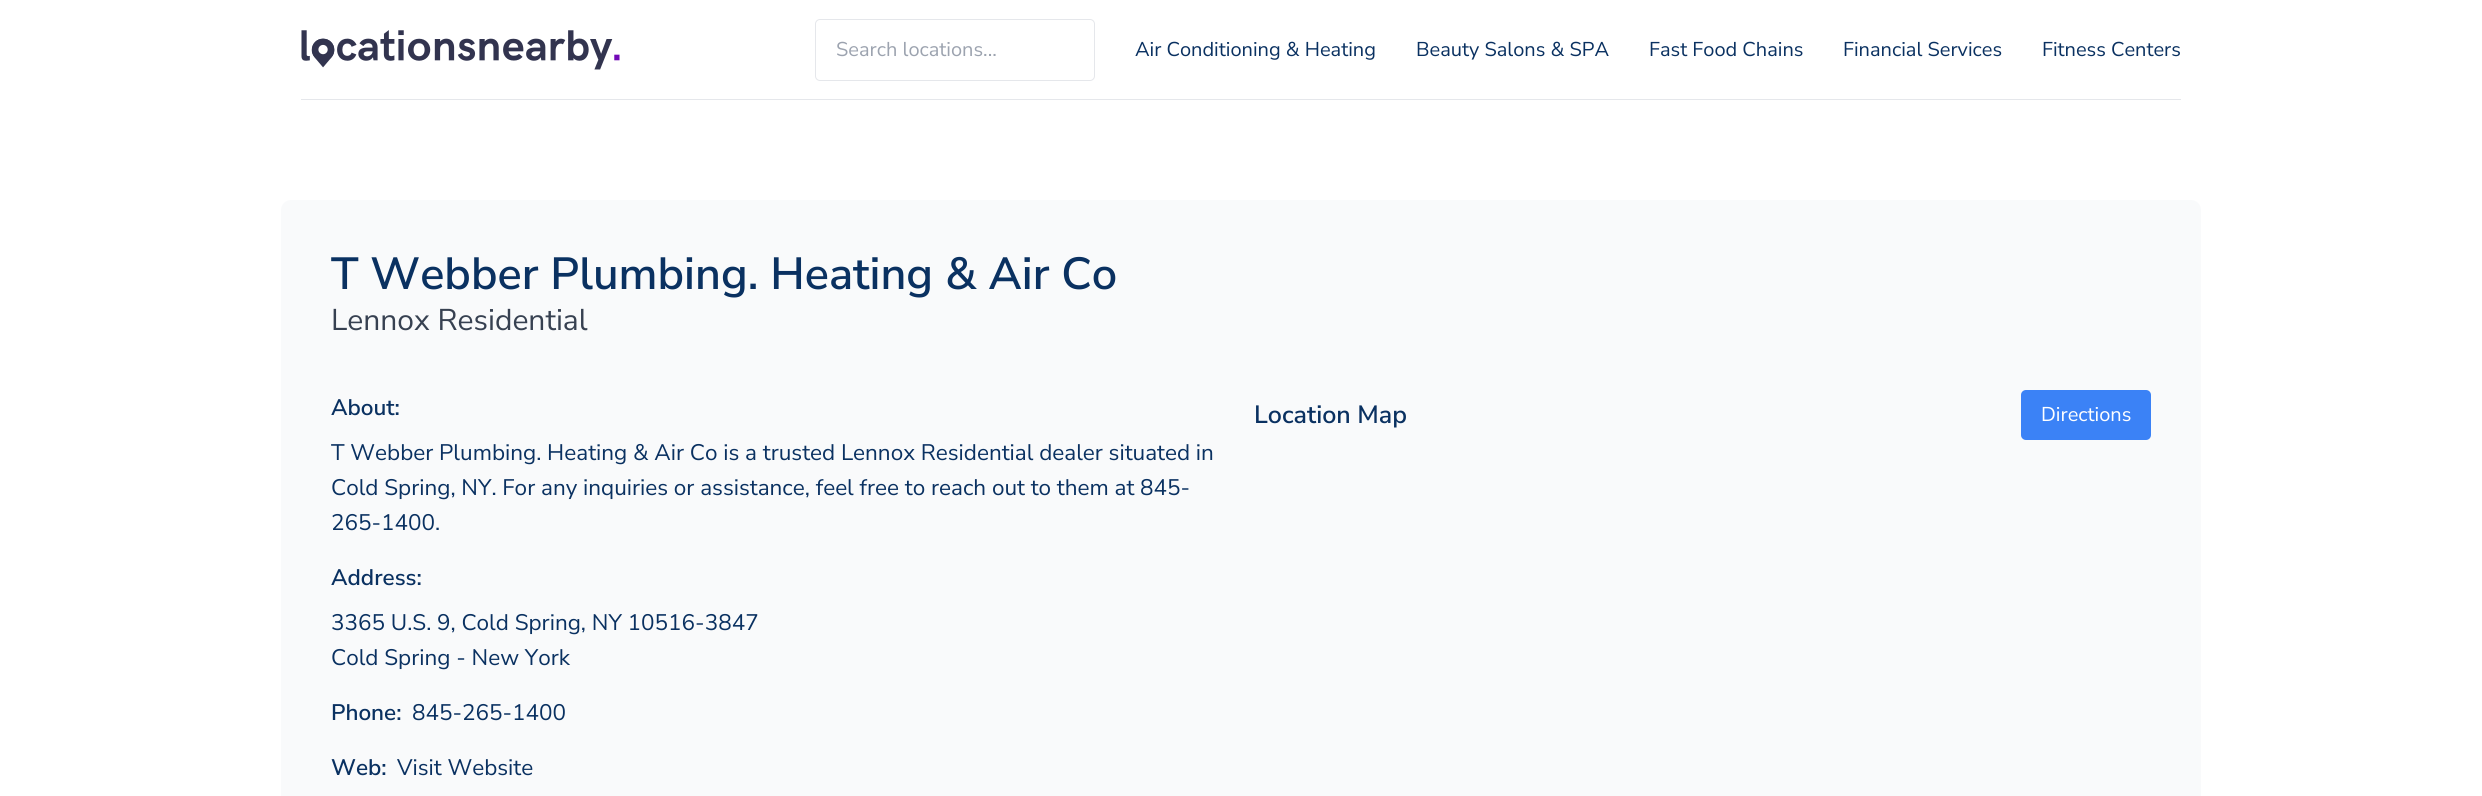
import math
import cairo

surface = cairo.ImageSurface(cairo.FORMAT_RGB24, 2482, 796)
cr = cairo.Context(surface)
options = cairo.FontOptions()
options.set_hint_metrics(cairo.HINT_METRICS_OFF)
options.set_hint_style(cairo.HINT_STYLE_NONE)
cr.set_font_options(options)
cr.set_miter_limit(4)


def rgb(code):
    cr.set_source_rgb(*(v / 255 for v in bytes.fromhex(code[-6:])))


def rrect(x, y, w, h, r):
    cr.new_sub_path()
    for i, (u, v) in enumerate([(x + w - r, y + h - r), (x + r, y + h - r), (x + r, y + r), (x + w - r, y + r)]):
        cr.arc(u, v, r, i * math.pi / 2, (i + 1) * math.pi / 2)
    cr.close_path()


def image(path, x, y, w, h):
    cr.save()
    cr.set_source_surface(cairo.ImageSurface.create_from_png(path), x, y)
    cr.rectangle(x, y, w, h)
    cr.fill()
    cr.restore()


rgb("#ffffff")
cr.paint()
rgb("#e5e7eb")
cr.rectangle(301, 99, 1880, 1)
cr.fill()
image("img/1.png", 301, 30, 319, 40)
rrect(815.5, 19.5, 279, 61, 4.5)
cr.set_line_width(1)
cr.stroke()
rgb("#f9fafb")
rrect(281, 200, 1920, 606, 10)
cr.fill()
rgb("#3b82f6")
rrect(2021, 390, 130, 50, 5)
cr.fill()
cr.select_font_face("Nunito Sans")
cr.set_font_size(20)
rgb("#9ca3af")
cr.move_to(836, 56)
cr.show_text("Search locations...")
rgb("#0a3161")
for x, y, s in [
    (1135, 56, "Air Conditioning & Heating"),
    (1416, 56, "Beauty Salons & SPA"),
    (1649, 56, "Fast Food Chains"),
    (1843, 56, "Financial Services"),
    (2042, 56, "Fitness Centers"),
]:
    cr.move_to(x, y)
    cr.show_text(s)
cr.select_font_face("Nunito Sans SemiBold")
cr.set_font_size(45)
cr.move_to(331, 289)
cr.show_text("T Webber Plumbing. Heating & Air Co")
cr.select_font_face("Nunito Sans")
cr.set_font_size(30)
rgb("#374151")
cr.move_to(331, 330)
cr.show_text("Lennox Residential")
cr.select_font_face("Nunito Sans SemiBold")
cr.set_font_size(22.5)
rgb("#0a3161")
cr.move_to(331, 415)
cr.show_text("About:")
cr.select_font_face("Nunito Sans")
for x, y, s in [
    (331, 460, "T Webber Plumbing. Heating & Air Co is a trusted Lennox Residential dealer situated in"),
    (331, 495, "Cold Spring, NY. For any inquiries or assistance, feel free to reach out to them at 845-"),
    (331, 530, "265-1400."),
]:
    cr.move_to(x, y)
    cr.show_text(s)
cr.select_font_face("Nunito Sans SemiBold")
cr.move_to(331, 585)
cr.show_text("Address:")
cr.select_font_face("Nunito Sans")
cr.move_to(331, 630)
cr.show_text("3365 U.S. 9, Cold Spring, NY 10516-3847")
cr.move_to(331, 665)
cr.show_text("Cold Spring - New York")
cr.select_font_face("Nunito Sans SemiBold")
cr.move_to(331, 720)
cr.show_text("Phone:")
cr.select_font_face("Nunito Sans")
cr.move_to(412, 720)
cr.show_text("845-265-1400")
cr.select_font_face("Nunito Sans SemiBold")
cr.move_to(331, 775)
cr.show_text("Web:")
cr.select_font_face("Nunito Sans")
cr.move_to(397, 775)
cr.show_text("Visit Website")
cr.select_font_face("Nunito Sans SemiBold")
cr.set_font_size(25)
cr.move_to(1254, 423)
cr.show_text("Location Map")
cr.select_font_face("Nunito Sans")
cr.set_font_size(20)
rgb("#ffffff")
cr.move_to(2041, 421)
cr.show_text("Directions")
surface.write_to_png("page.png")
